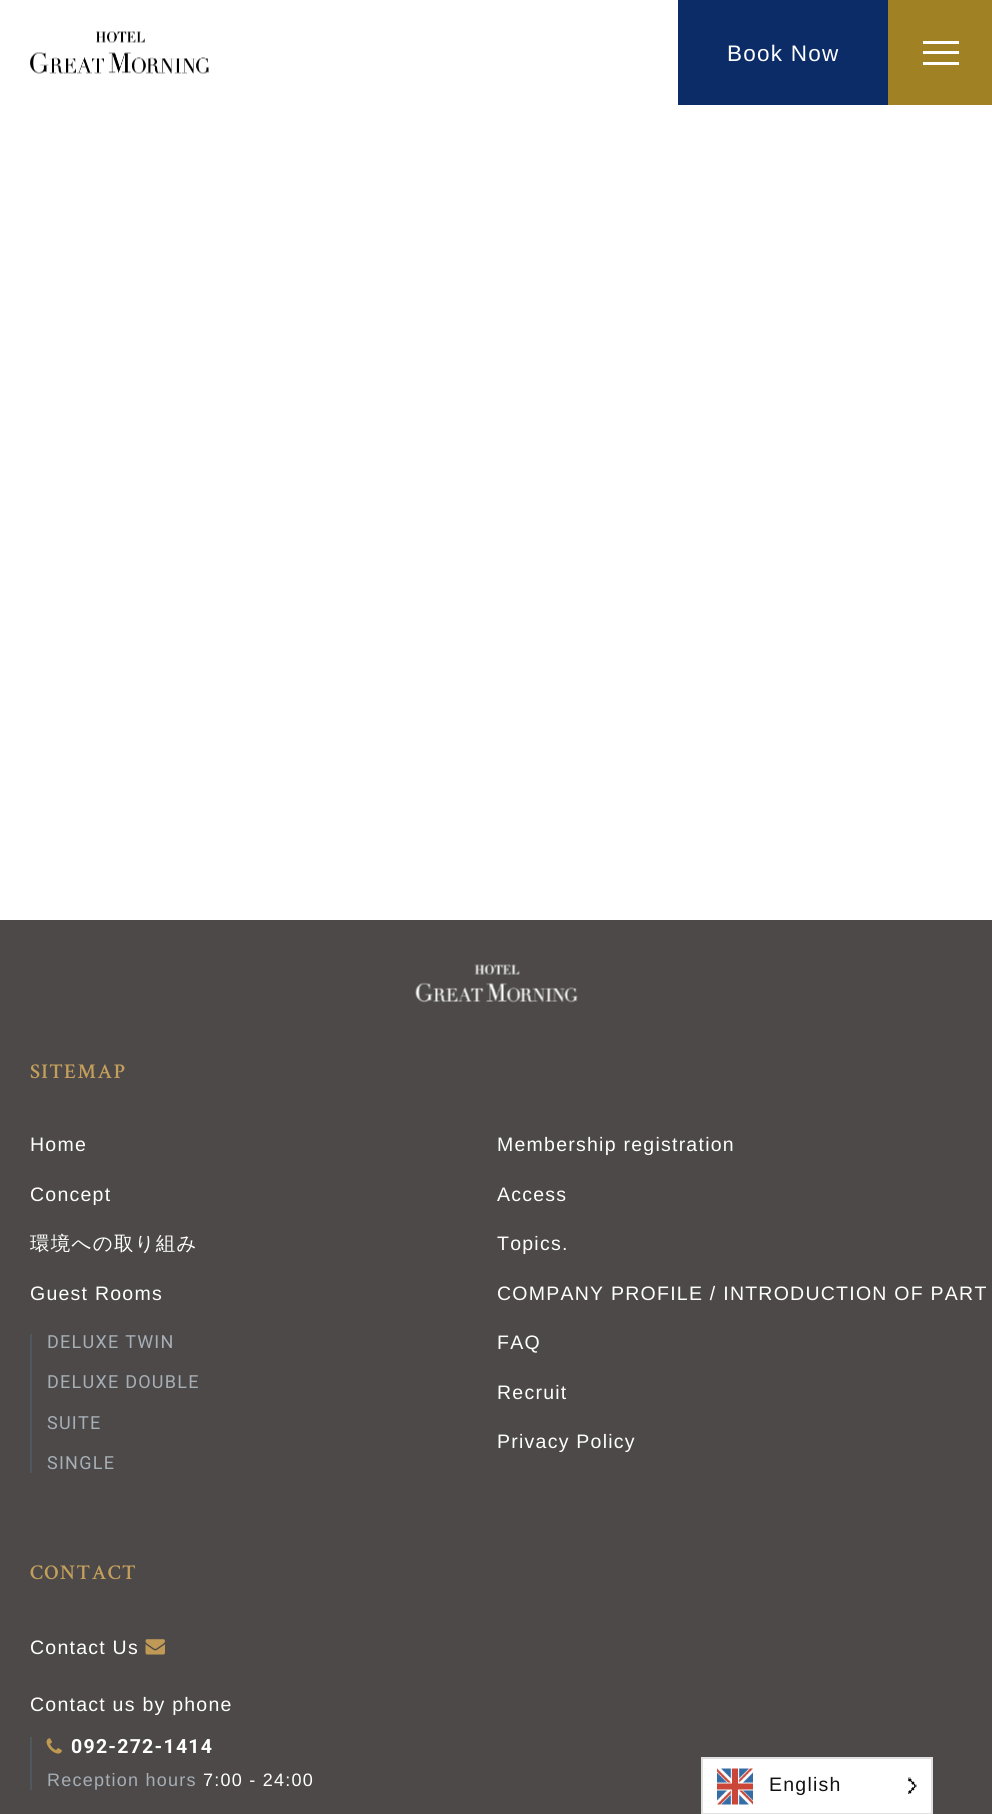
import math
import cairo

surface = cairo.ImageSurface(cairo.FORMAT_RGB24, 992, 1814)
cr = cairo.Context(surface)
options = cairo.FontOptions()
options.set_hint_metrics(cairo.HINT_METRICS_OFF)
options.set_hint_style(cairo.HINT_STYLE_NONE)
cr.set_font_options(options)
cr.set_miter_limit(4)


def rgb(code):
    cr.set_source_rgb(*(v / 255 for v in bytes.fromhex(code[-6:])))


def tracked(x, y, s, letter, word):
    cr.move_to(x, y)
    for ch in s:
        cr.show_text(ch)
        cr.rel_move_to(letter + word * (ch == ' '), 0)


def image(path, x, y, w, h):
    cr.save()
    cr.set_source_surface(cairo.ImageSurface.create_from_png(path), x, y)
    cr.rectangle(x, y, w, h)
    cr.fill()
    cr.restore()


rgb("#ffffff")
cr.paint()
image("img/1.png", 30, 31, 180, 43)
for x, y, w, h, color in [
    (678, 0, 210, 105, "#0b2c67"),
    (888, 0, 104, 105, "#a08224"),
    (923, 41, 36, 3, "#ffffff"),
    (923, 51, 36, 3, "#ffffff"),
    (923, 62, 36, 3, "#ffffff"),
    (0, 920, 992, 894, "#4c4948"),
]:
    rgb(color)
    cr.rectangle(x, y, w, h)
    cr.fill()
image("img/2.png", 415, 964, 163, 39)
rgb("#4f575f")
cr.rectangle(30, 1334, 2, 139)
cr.fill()
image("img/3.png", 145, 1639, 20, 16)
cr.rectangle(30, 1737, 2, 53)
cr.fill()
image("img/4.png", 46, 1738, 16, 16)
rgb("#ffffff")
cr.rectangle(702, 1758, 230, 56)
cr.fill_preserve()
rgb("#e0e0e0")
cr.stroke()
image("img/5.png", 717, 1768, 36, 37)
image("img/6.png", 908, 1777, 9, 17)
cr.select_font_face("Liberation Sans")
cr.set_font_size(22.5)
rgb("#ffffff")
tracked(727, 61, "Book Now", 1.25, 0)
cr.select_font_face("Crimson Text SemiBold")
cr.set_font_size(21)
rgb("#c49f5b")
tracked(30, 1078, "SITEMAP", 1.25, 0)
cr.select_font_face("Liberation Sans")
cr.set_font_size(19.5)
rgb("#ffffff")
tracked(30, 1151, "Home", 1.25, 0)
tracked(30, 1201, "Concept", 1.25, 0)
cr.select_font_face("WenQuanYi Zen Hei Medium")
tracked(30, 1250, "環境への取り組み", 1.25, 0)
cr.select_font_face("Liberation Sans")
tracked(30, 1300, "Guest Rooms", 1.25, 0)
cr.select_font_face("Roboto")
cr.set_font_size(18)
rgb("#a6aeb6")
for x, y, s in [
    (47, 1348, "DELUXE TWIN"),
    (47, 1388, "DELUXE DOUBLE"),
    (47, 1429, "SUITE"),
    (47, 1469, "SINGLE"),
]:
    tracked(x, y, s, 1.25, 0)
cr.select_font_face("Liberation Sans")
cr.set_font_size(19.5)
rgb("#ffffff")
for x, y, s in [
    (497, 1151, "Membership registration"),
    (497, 1201, "Access"),
    (497, 1250, "Topics."),
    (497, 1300, "COMPANY PROFILE / INTRODUCTION OF PART"),
    (497, 1349, "FAQ"),
    (497, 1399, "Recruit"),
    (497, 1448, "Privacy Policy"),
]:
    tracked(x, y, s, 1.25, 0)
cr.select_font_face("Crimson Text SemiBold")
cr.set_font_size(21)
rgb("#c49f5b")
tracked(30, 1579, "CONTACT", 1.25, 0)
cr.select_font_face("Liberation Sans")
cr.set_font_size(19.5)
rgb("#ffffff")
tracked(30, 1654, "Contact Us", 1.25, 0)
tracked(30, 1711, "Contact us by phone", 1.25, 0)
cr.select_font_face("Roboto", cairo.FONT_SLANT_NORMAL, cairo.FONT_WEIGHT_BOLD)
tracked(71, 1753, "092-272-1414", 1.25, 0)
cr.select_font_face("Liberation Sans")
cr.set_font_size(18)
rgb("#a6aeb6")
tracked(47, 1786, "Reception hours", 1.25, 0)
rgb("#ffffff")
tracked(203, 1786, "7:00 - 24:00", 1.25, 0)
cr.set_font_size(19.5)
rgb("#111111")
tracked(769, 1791, "English", 1.25, 0)
surface.write_to_png("page.png")
